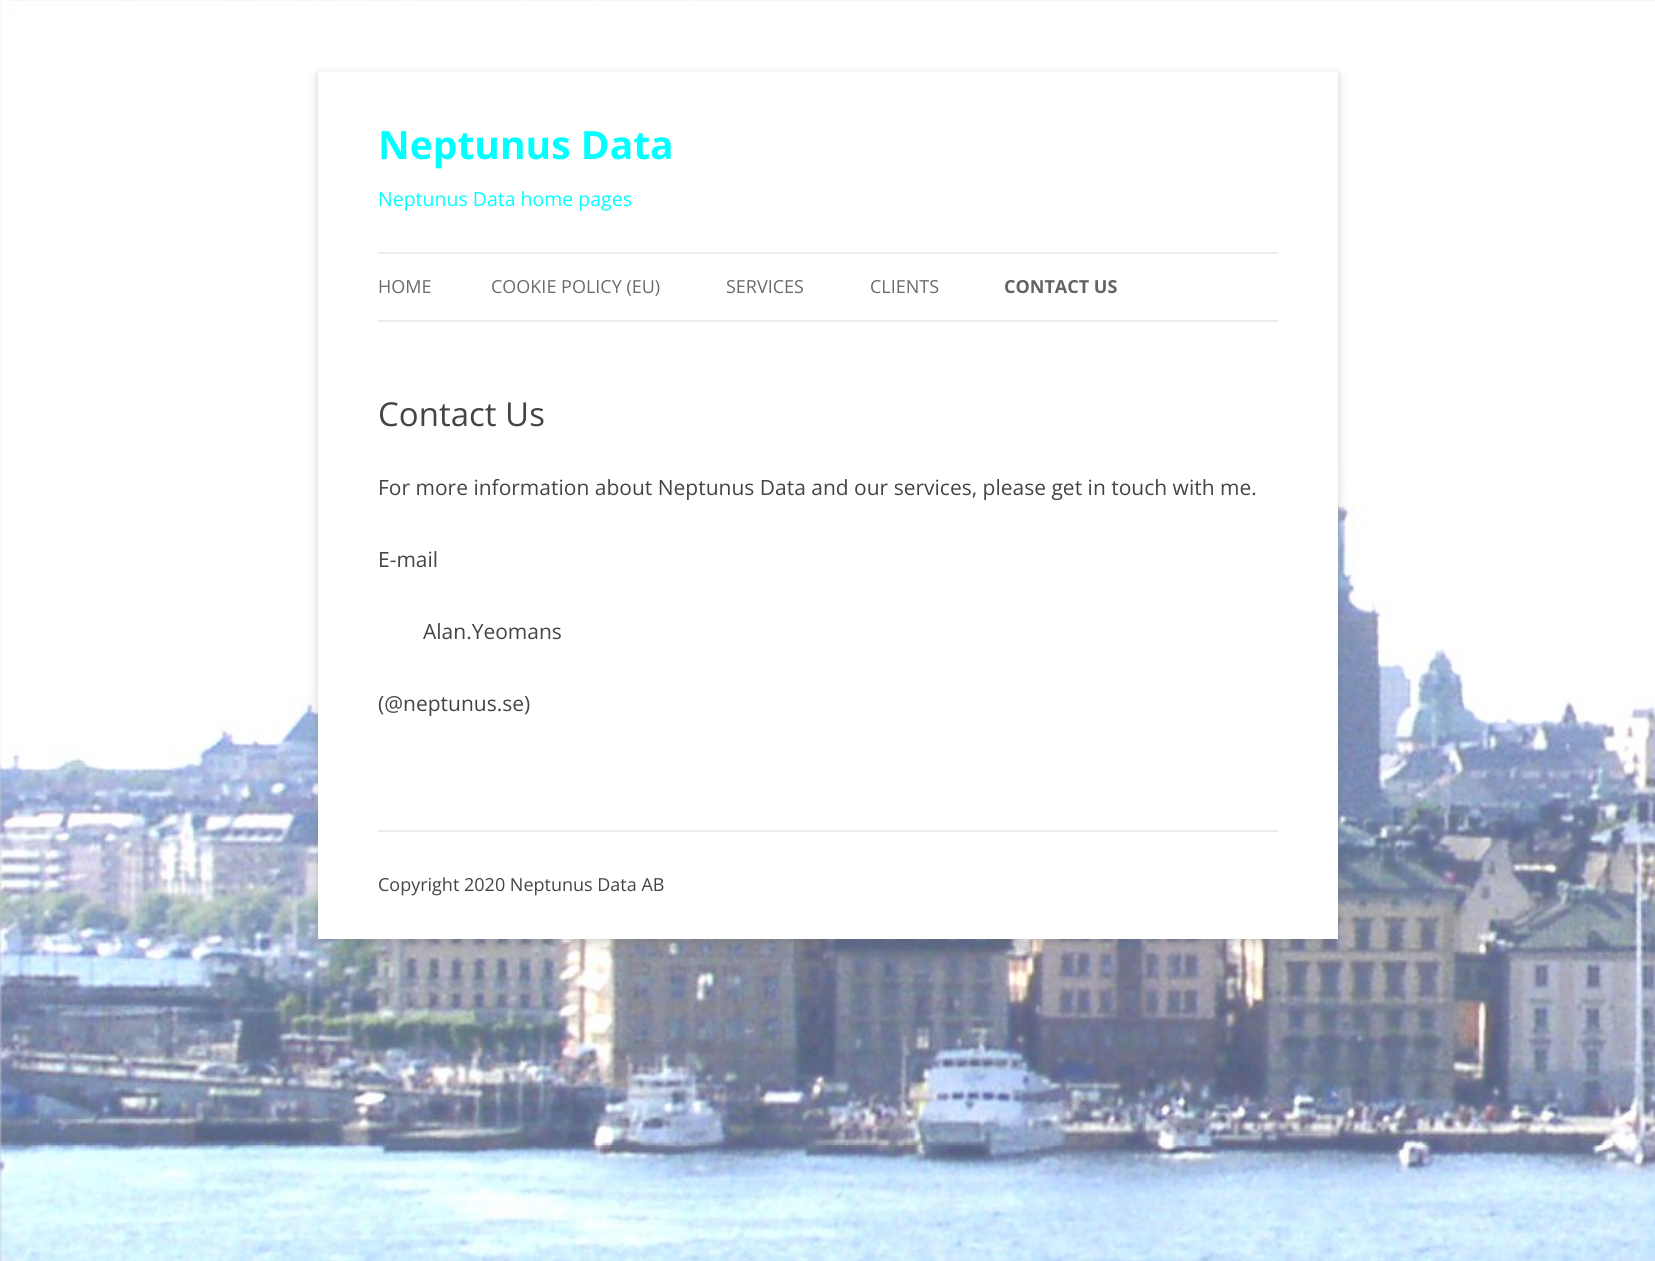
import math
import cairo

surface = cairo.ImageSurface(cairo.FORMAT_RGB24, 1655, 1261)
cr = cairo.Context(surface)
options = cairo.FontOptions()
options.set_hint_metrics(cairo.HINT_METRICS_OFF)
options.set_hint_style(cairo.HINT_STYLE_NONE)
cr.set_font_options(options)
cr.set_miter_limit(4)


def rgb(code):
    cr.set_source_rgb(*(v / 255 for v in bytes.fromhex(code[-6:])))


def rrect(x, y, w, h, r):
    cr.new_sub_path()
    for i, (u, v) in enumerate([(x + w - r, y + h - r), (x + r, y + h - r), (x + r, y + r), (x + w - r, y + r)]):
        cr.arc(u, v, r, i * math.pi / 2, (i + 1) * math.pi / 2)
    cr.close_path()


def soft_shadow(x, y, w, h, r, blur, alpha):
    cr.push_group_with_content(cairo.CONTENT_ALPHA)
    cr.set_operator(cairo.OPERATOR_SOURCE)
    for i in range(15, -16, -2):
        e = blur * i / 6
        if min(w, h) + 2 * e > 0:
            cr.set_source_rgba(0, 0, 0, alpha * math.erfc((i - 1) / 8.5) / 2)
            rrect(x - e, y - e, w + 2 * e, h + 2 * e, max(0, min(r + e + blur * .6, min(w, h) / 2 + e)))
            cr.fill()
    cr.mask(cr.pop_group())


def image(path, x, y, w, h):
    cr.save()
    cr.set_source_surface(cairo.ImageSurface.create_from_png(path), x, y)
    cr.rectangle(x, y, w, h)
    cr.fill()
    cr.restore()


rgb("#ffffff")
cr.paint()
image("img/1.png", 0, 0, 1655, 1261)
rgb("#646464")
soft_shadow(318, 75, 1020, 867, 0, 4.5, 0.3)
for x, y, w, h, color in [
    (318, 72, 1020, 867, "#ffffff"),
    (378, 252, 900, 2, "#ededed"),
    (378, 320, 900, 2, "#ededed"),
    (378, 830, 900, 2, "#ededed"),
]:
    rgb(color)
    cr.rectangle(x, y, w, h)
    cr.fill()
cr.select_font_face("Open Sans", cairo.FONT_SLANT_NORMAL, cairo.FONT_WEIGHT_BOLD)
cr.set_font_size(39)
rgb("#00ffff")
cr.move_to(378, 159)
cr.show_text("Neptunus Data")
cr.select_font_face("Open Sans")
cr.set_font_size(19.5)
cr.move_to(378, 206)
cr.show_text("Neptunus Data home pages")
cr.set_font_size(18)
rgb("#6a6a6a")
for x, y, s in [
    (378, 293, "HOME"),
    (491, 293, "COOKIE POLICY (EU)"),
    (726, 293, "SERVICES"),
    (870, 293, "CLIENTS"),
]:
    cr.move_to(x, y)
    cr.show_text(s)
cr.select_font_face("Open Sans", cairo.FONT_SLANT_NORMAL, cairo.FONT_WEIGHT_BOLD)
rgb("#636363")
cr.move_to(1004, 293)
cr.show_text("CONTACT US")
cr.select_font_face("Open Sans")
cr.set_font_size(33)
rgb("#444444")
cr.move_to(378, 426)
cr.show_text("Contact Us")
cr.set_font_size(21)
for x, y, s in [
    (378, 495, "For more information about Neptunus Data and our services, please get in touch with me."),
    (378, 567, "E-mail"),
    (423, 639, "Alan.Yeomans"),
    (378, 711, "(@neptunus.se)"),
]:
    cr.move_to(x, y)
    cr.show_text(s)
cr.set_font_size(18)
cr.move_to(378, 891)
cr.show_text("Copyright 2020 Neptunus Data AB")
surface.write_to_png("page.png")
